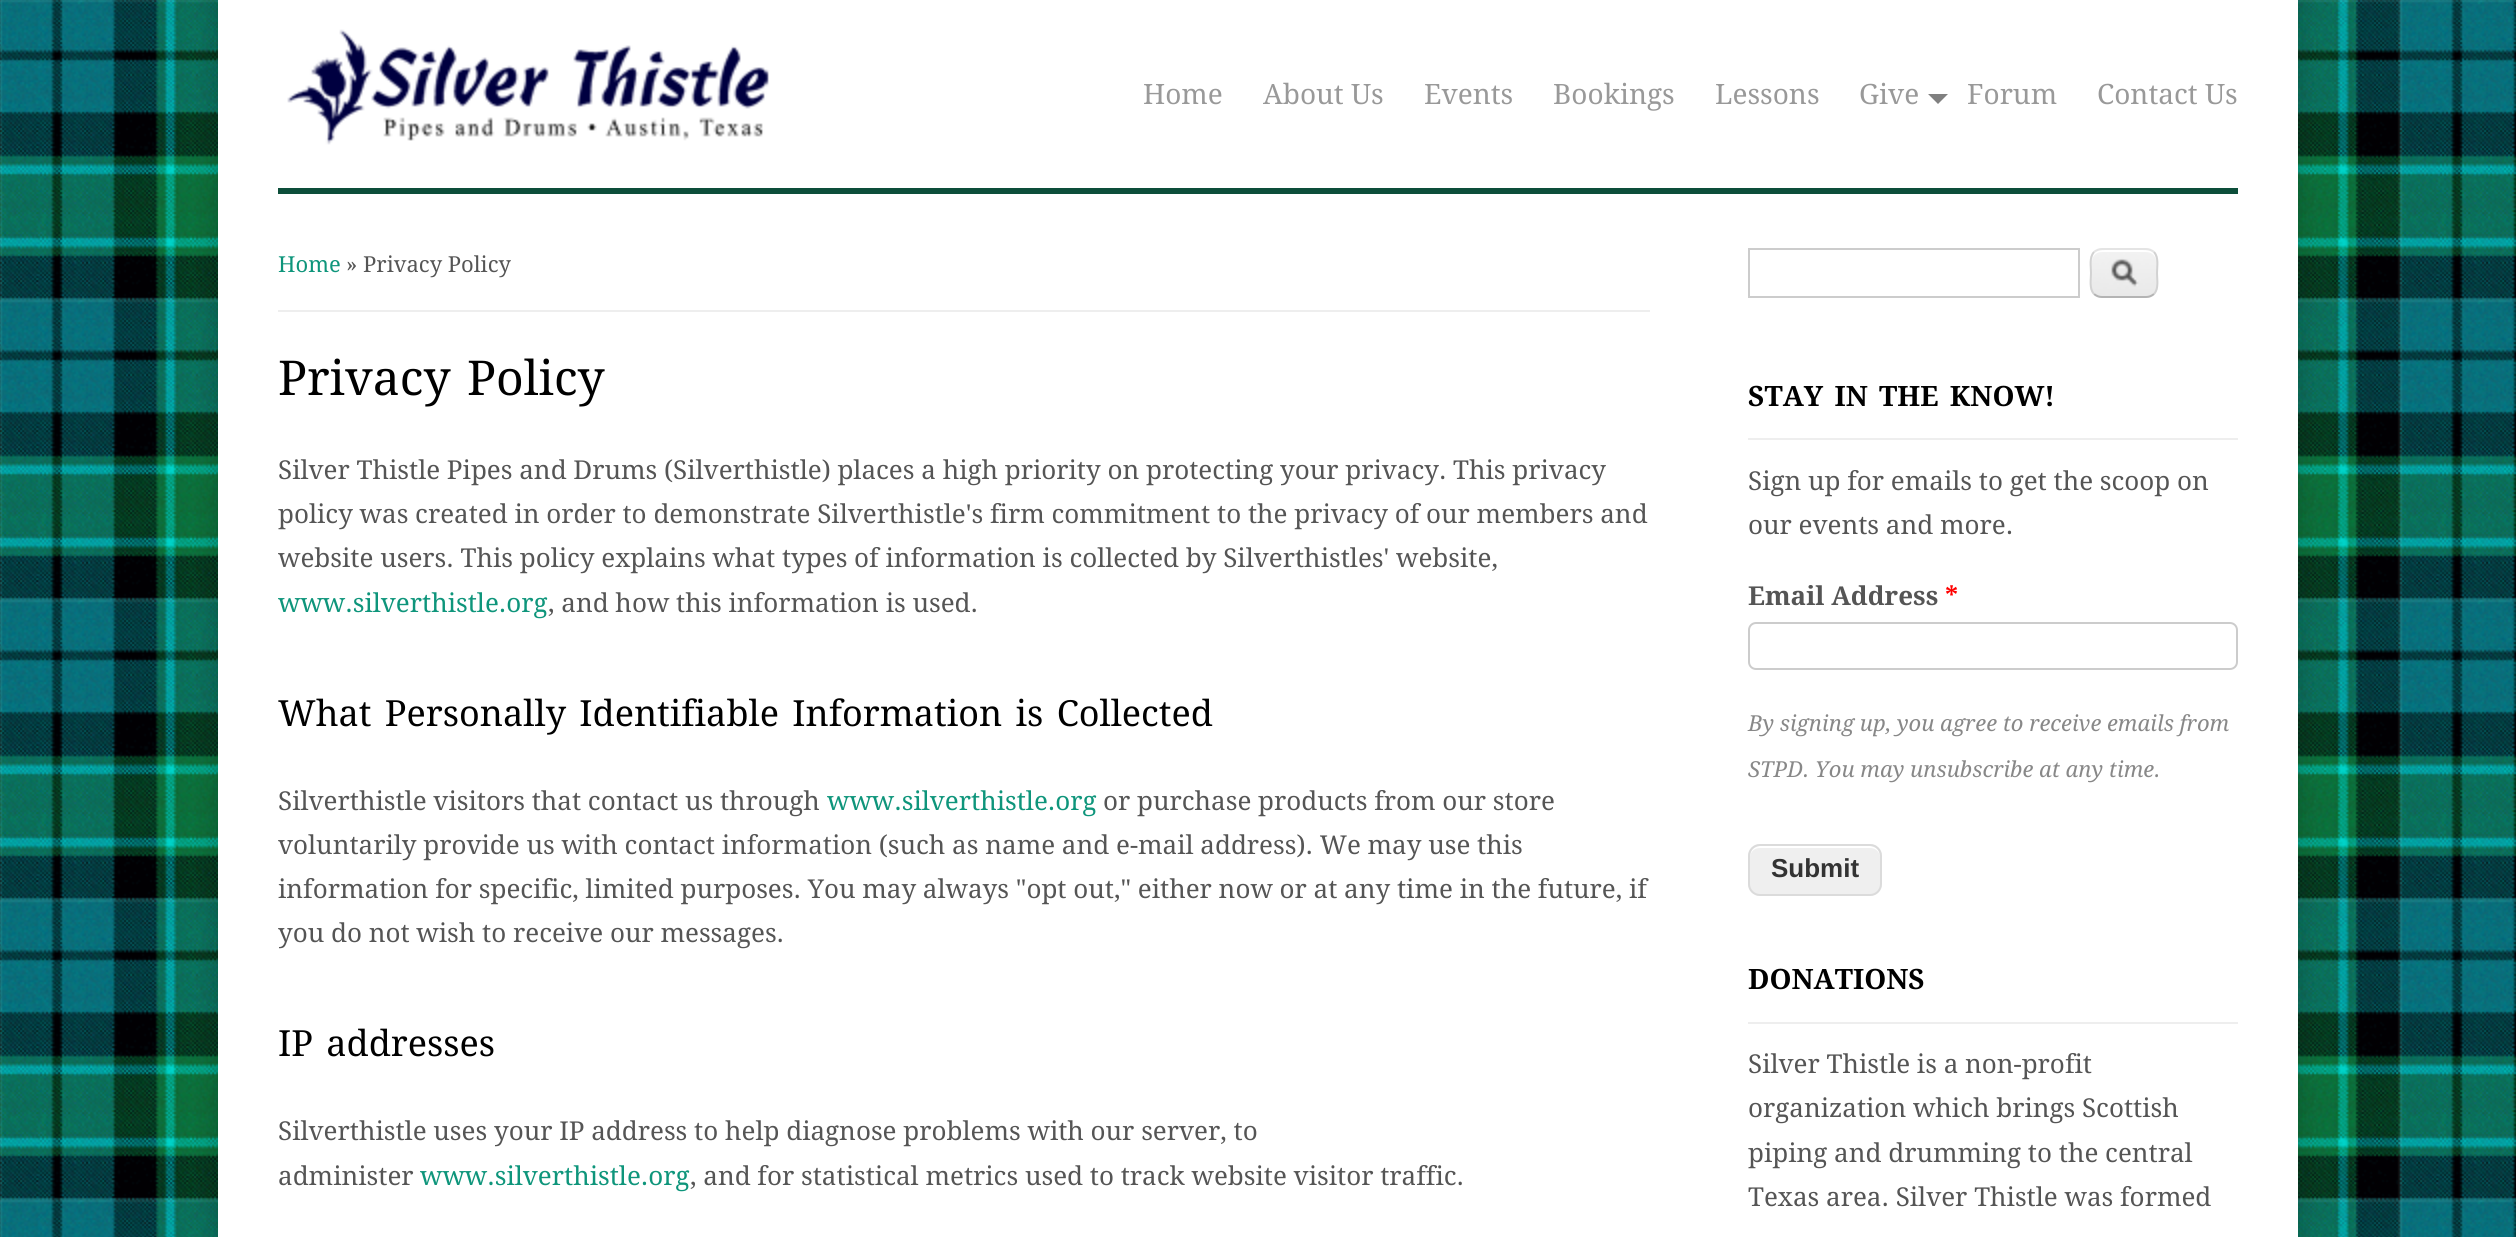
import math
import cairo

surface = cairo.ImageSurface(cairo.FORMAT_RGB24, 2516, 1237)
cr = cairo.Context(surface)
options = cairo.FontOptions()
options.set_hint_metrics(cairo.HINT_METRICS_OFF)
options.set_hint_style(cairo.HINT_STYLE_NONE)
cr.set_font_options(options)
cr.set_miter_limit(4)


def rgb(code):
    cr.set_source_rgb(*(v / 255 for v in bytes.fromhex(code[-6:])))


def tracked(x, y, s, letter, word):
    cr.move_to(x, y)
    for ch in s:
        cr.show_text(ch)
        cr.rel_move_to(letter + word * (ch == ' '), 0)


def rrect(x, y, w, h, r):
    cr.new_sub_path()
    for i, (u, v) in enumerate([(x + w - r, y + h - r), (x + r, y + h - r), (x + r, y + r), (x + w - r, y + r)]):
        cr.arc(u, v, r, i * math.pi / 2, (i + 1) * math.pi / 2)
    cr.close_path()


def soft_shadow(x, y, w, h, r, blur, alpha):
    cr.push_group_with_content(cairo.CONTENT_ALPHA)
    cr.set_operator(cairo.OPERATOR_SOURCE)
    for i in range(15, -16, -2):
        e = blur * i / 6
        if min(w, h) + 2 * e > 0:
            cr.set_source_rgba(0, 0, 0, alpha * math.erfc((i - 1) / 8.5) / 2)
            rrect(x - e, y - e, w + 2 * e, h + 2 * e, max(0, min(r + e + blur * .6, min(w, h) / 2 + e)))
            cr.fill()
    cr.mask(cr.pop_group())


def image(path, x, y, w, h):
    cr.save()
    cr.set_source_surface(cairo.ImageSurface.create_from_png(path), x, y)
    cr.rectangle(x, y, w, h)
    cr.fill()
    cr.restore()


rgb("#ffffff")
cr.paint()
image("img/1.png", 0, 0, 2516, 1237)
rgb("#000000")
soft_shadow(218, 0, 2080, 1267, 0, 10, 0.2)
rgb("#ffffff")
cr.rectangle(218, 0, 2080, 1237)
cr.fill()
rgb("#0d4e3a")
cr.rectangle(278, 188, 1960, 6)
cr.fill()
image("img/2.png", 287, 29, 482, 116)
rgb("#808080")
cr.new_path()
cr.move_to(1928, 94)
cr.line_to(1948, 94)
cr.line_to(1938, 104)
cr.close_path()
cr.fill()
rgb("#eeeeee")
cr.rectangle(278, 310, 1372, 2)
cr.fill()
cr.rectangle(1749, 249, 330, 48)
rgb("#cccccc")
cr.stroke()
image("img/3.png", 2090, 250, 68, 48)
rgb("#ffffff")
cr.new_path()
cr.move_to(2102, 252)
cr.line_to(2146, 252)
cr.curve_to(2152, 252, 2156, 256, 2156, 262)
cr.curve_to(2156, 250, 2149, 250, 2139, 250)
cr.line_to(2109, 250)
cr.curve_to(2099, 250, 2092, 250, 2092, 262)
cr.curve_to(2092, 256, 2096, 252, 2102, 252)
cr.close_path()
cr.fill()
cr.new_path()
cr.move_to(2094, 252)
cr.curve_to(2096.5, 250, 2099, 249, 2102, 249)
cr.line_to(2146, 249)
cr.curve_to(2149, 249, 2151.5, 250, 2154, 252)
rgb("#e4e4e4")
cr.stroke()
cr.new_path()
cr.move_to(2154, 252)
cr.curve_to(2159, 257.5, 2157, 266.5, 2157, 273)
cr.curve_to(2157, 279.5, 2159, 288.5, 2154, 294)
rgb("#d2d2d2")
cr.stroke()
cr.new_path()
cr.move_to(2154, 294)
cr.curve_to(2151.5, 296, 2149, 297, 2146, 297)
cr.line_to(2102, 297)
cr.curve_to(2099, 297, 2096.5, 296, 2094, 294)
rgb("#b4b4b4")
cr.stroke()
cr.new_path()
cr.move_to(2094, 294)
cr.curve_to(2089, 288.5, 2091, 279.5, 2091, 273)
cr.curve_to(2091, 266.5, 2089, 257.5, 2094, 252)
rgb("#d2d2d2")
cr.stroke()
rgb("#eeeeee")
cr.rectangle(1748, 438, 490, 2)
cr.fill()
rrect(1749, 623, 488, 46, 7)
rgb("#cccccc")
cr.stroke()
rgb("#efefef")
rrect(1748, 844, 134, 52, 12)
cr.fill()
rgb("#ffffff")
cr.new_path()
cr.move_to(1760, 848)
cr.line_to(1870, 848)
cr.curve_to(1876, 848, 1880, 852, 1880, 858)
cr.curve_to(1880, 842, 1864, 846, 1852, 846)
cr.line_to(1778, 846)
cr.curve_to(1766, 846, 1750, 842, 1750, 858)
cr.curve_to(1750, 852, 1754, 848, 1760, 848)
cr.close_path()
cr.fill()
rrect(1749, 845, 132, 50, 11)
rgb("#dbdbdb")
cr.stroke()
rgb("#eeeeee")
cr.rectangle(1748, 1022, 490, 2)
cr.fill()
cr.select_font_face("Droid Serif")
cr.set_font_size(28)
rgb("#999999")
for x, y, s in [
    (1143, 104, "Home"),
    (1263, 104, "About Us"),
    (1424, 104, "Events"),
    (1553, 104, "Bookings"),
    (1715, 104, "Lessons"),
    (1859, 104, "Give"),
    (1967, 104, "Forum"),
    (2097, 104, "Contact Us"),
]:
    cr.move_to(x, y)
    cr.show_text(s)
cr.set_font_size(22)
rgb("#0e957b")
cr.move_to(278, 272)
cr.show_text("Home")
rgb("#555555")
cr.move_to(346, 272)
cr.show_text("» Privacy Policy")
cr.set_font_size(48)
rgb("#000000")
tracked(278, 395, "Privacy Policy", 0, 4)
cr.set_font_size(26)
rgb("#555555")
for x, y, s in [
    (278, 479, "Silver Thistle Pipes and Drums (Silverthistle) places a high priority on protecting your privacy. This privacy"),
    (278, 523, "policy was created in order to demonstrate Silverthistle's firm commitment to the privacy of our members and"),
    (278, 567, "website users. This policy explains what types of information is collected by Silverthistles' website,"),
]:
    cr.move_to(x, y)
    cr.show_text(s)
rgb("#0e957b")
cr.move_to(278, 612)
cr.show_text("www.silverthistle.org")
rgb("#555555")
cr.move_to(548, 612)
cr.show_text(", and how this information is used.")
cr.set_font_size(36)
rgb("#000000")
tracked(278, 726, "What Personally Identifiable Information is Collected", 0, 4)
cr.set_font_size(26)
rgb("#555555")
cr.move_to(278, 810)
cr.show_text("Silverthistle visitors that contact us through")
rgb("#0e957b")
cr.move_to(827, 810)
cr.show_text("www.silverthistle.org")
rgb("#555555")
for x, y, s in [
    (1103, 810, "or purchase products from our store"),
    (278, 854, "voluntarily provide us with contact information (such as name and e-mail address). We may use this"),
    (278, 898, "information for specific, limited purposes. You may always \"opt out,\" either now or at any time in the future, if"),
    (278, 942, "you do not wish to receive our messages."),
]:
    cr.move_to(x, y)
    cr.show_text(s)
cr.set_font_size(36)
rgb("#000000")
tracked(278, 1056, "IP addresses", 0, 4)
cr.set_font_size(26)
rgb("#555555")
cr.move_to(278, 1140)
cr.show_text("Silverthistle uses your IP address to help diagnose problems with our server, to")
cr.move_to(278, 1185)
cr.show_text("administer")
rgb("#0e957b")
cr.move_to(420, 1185)
cr.show_text("www.silverthistle.org")
rgb("#555555")
cr.move_to(690, 1185)
cr.show_text(", and for statistical metrics used to track website visitor traffic.")
cr.select_font_face("Droid Serif", cairo.FONT_SLANT_NORMAL, cairo.FONT_WEIGHT_BOLD)
cr.set_font_size(28)
rgb("#000000")
tracked(1748, 406, "STAY IN THE KNOW!", 0, 4)
cr.select_font_face("Droid Serif")
cr.set_font_size(26)
rgb("#555555")
cr.move_to(1748, 490)
cr.show_text("Sign up for emails to get the scoop on")
cr.move_to(1748, 534)
cr.show_text("our events and more.")
cr.select_font_face("Droid Serif", cairo.FONT_SLANT_NORMAL, cairo.FONT_WEIGHT_BOLD)
cr.move_to(1748, 605)
cr.show_text("Email Address")
rgb("#ff0000")
cr.move_to(1945, 605)
cr.show_text("*")
cr.select_font_face("Droid Serif", cairo.FONT_SLANT_ITALIC)
cr.set_font_size(22)
rgb("#888888")
cr.move_to(1748, 731)
cr.show_text("By signing up, you agree to receive emails from")
cr.move_to(1748, 777)
cr.show_text("STPD. You may unsubscribe at any time.")
cr.select_font_face("Liberation Sans", cairo.FONT_SLANT_NORMAL, cairo.FONT_WEIGHT_BOLD)
cr.set_font_size(26)
rgb("#333333")
cr.move_to(1771, 877)
cr.show_text("Submit")
cr.select_font_face("Droid Serif", cairo.FONT_SLANT_NORMAL, cairo.FONT_WEIGHT_BOLD)
cr.set_font_size(28)
rgb("#000000")
cr.move_to(1748, 989)
cr.show_text("DONATIONS")
cr.select_font_face("Droid Serif")
cr.set_font_size(26)
rgb("#555555")
for x, y, s in [
    (1748, 1073, "Silver Thistle is a non-profit"),
    (1748, 1117, "organization which brings Scottish"),
    (1748, 1162, "piping and drumming to the central"),
    (1748, 1206, "Texas area. Silver Thistle was formed"),
]:
    cr.move_to(x, y)
    cr.show_text(s)
surface.write_to_png("page.png")
